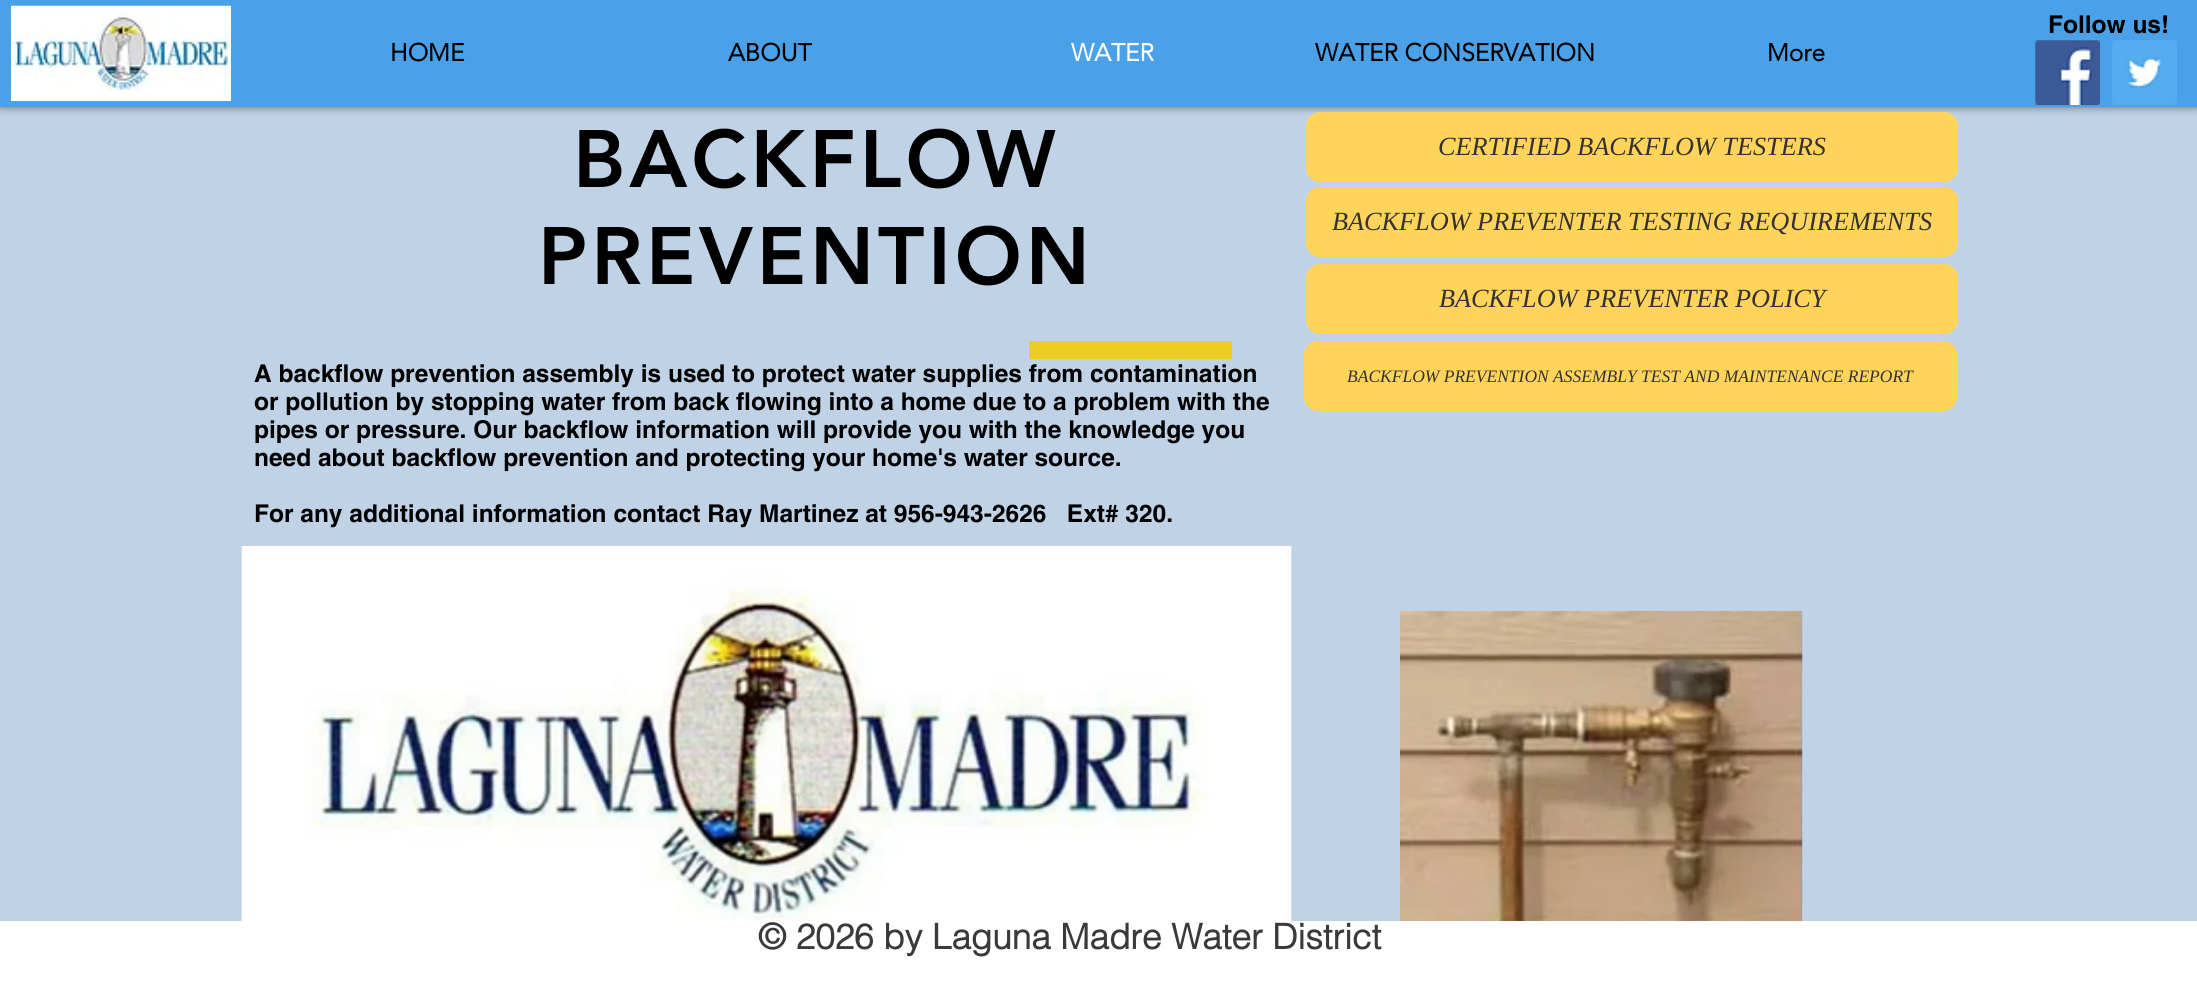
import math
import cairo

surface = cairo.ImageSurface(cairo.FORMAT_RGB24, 2197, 990)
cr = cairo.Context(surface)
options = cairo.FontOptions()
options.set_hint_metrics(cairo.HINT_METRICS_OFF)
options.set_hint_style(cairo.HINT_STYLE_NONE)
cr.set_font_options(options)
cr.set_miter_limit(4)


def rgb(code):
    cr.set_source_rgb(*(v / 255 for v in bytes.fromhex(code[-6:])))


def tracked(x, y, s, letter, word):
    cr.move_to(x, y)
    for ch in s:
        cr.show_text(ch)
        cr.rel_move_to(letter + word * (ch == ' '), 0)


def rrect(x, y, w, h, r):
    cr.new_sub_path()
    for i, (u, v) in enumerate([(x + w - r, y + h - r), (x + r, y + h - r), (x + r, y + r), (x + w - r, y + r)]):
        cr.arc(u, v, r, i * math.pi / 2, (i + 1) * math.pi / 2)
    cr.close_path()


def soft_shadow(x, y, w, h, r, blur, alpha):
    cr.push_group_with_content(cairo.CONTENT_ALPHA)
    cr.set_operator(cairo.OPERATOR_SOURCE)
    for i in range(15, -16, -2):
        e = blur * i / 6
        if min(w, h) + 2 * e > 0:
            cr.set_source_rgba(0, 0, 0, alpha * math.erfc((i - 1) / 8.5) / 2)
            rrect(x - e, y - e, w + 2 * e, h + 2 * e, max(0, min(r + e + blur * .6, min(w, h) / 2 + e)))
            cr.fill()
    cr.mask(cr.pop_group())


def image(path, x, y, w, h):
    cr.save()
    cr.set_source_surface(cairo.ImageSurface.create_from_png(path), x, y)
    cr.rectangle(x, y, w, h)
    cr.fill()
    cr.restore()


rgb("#c0d2e5")
cr.paint()
cr.save()
cr.set_fill_rule(cairo.FILL_RULE_EVEN_ODD)
cr.new_path()
cr.move_to(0, 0)
cr.line_to(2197, 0)
cr.line_to(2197, 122)
cr.line_to(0, 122)
cr.close_path()
cr.move_to(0, 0)
cr.line_to(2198, 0)
cr.line_to(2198, 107)
cr.line_to(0, 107)
cr.close_path()
cr.clip()
rgb("#000000")
soft_shadow(0, 0, 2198, 107, 0, 4.5, 0.5)
cr.restore()
cr.set_source_rgba(0.239, 0.608, 0.914, 0.9)
cr.rectangle(0, 0, 2197, 107)
cr.fill()
image("img/1.png", 11, 5, 220, 97)
image("img/2.png", 2035, 40, 65, 65)
image("img/3.png", 2112, 40, 65, 65)
rgb("#ffd45a")
rrect(1306, 112, 652, 70, 14)
cr.fill()
rrect(1306, 187, 652, 70, 14)
cr.fill()
rrect(1306, 264, 652, 70, 14)
cr.fill()
rgb("#edcd1f")
cr.rectangle(1029, 341, 203, 18)
cr.fill()
rgb("#ffd45a")
rrect(1304, 341, 653, 70, 14)
cr.fill()
image("img/4.png", 1400, 610, 403, 311)
image("img/5.png", 241, 546, 1051, 375)
rgb("#ffffff")
cr.rectangle(0, 921, 2197, 69)
cr.fill()
cr.select_font_face("helvetica", cairo.FONT_SLANT_NORMAL, cairo.FONT_WEIGHT_BOLD)
cr.set_font_size(24.5)
rgb("#000000")
cr.move_to(2048, 33)
cr.show_text("Follow us!")
cr.select_font_face("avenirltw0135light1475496", cairo.FONT_SLANT_NORMAL, cairo.FONT_WEIGHT_BOLD)
cr.move_to(390, 61)
cr.show_text("HOME")
cr.move_to(728, 61)
cr.show_text("ABOUT")
rgb("#ffffff")
cr.move_to(1071, 61)
cr.show_text("WATER")
rgb("#000000")
cr.move_to(1315, 61)
cr.show_text("WATER CONSERVATION")
cr.move_to(1767, 61)
cr.show_text("More")
cr.select_font_face("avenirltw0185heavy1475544 Black")
cr.set_font_size(80.5)
tracked(573, 187, "BACKFLOW", 4, 0)
tracked(538, 284, "PREVENTION", 4, 0)
cr.select_font_face("Liberation Serif", cairo.FONT_SLANT_ITALIC)
cr.set_font_size(26.25)
rgb("#353131")
for x, y, s in [
    (1438, 155, "CERTIFIED BACKFLOW TESTERS"),
    (1332, 230, "BACKFLOW PREVENTER TESTING REQUIREMENTS"),
    (1439, 307, "BACKFLOW PREVENTER POLICY"),
]:
    cr.move_to(x, y)
    cr.show_text(s)
cr.select_font_face("helvetica", cairo.FONT_SLANT_NORMAL, cairo.FONT_WEIGHT_BOLD)
cr.set_font_size(24.5)
rgb("#000000")
for x, y, s in [
    (254, 382, "A backflow prevention assembly is used to protect water supplies from contamination"),
    (254, 410, "or pollution by stopping water from back flowing into a home due to a problem with the"),
    (254, 438, "pipes or pressure. Our backflow information will provide you with the knowledge you"),
    (254, 466, "need about backflow prevention and protecting your home's water source."),
    (254, 522, "For any additional information contact Ray Martinez at 956-943-2626   Ext# 320."),
]:
    cr.move_to(x, y)
    cr.show_text(s)
cr.select_font_face("Liberation Serif", cairo.FONT_SLANT_ITALIC)
cr.set_font_size(17.5)
rgb("#353131")
cr.move_to(1347, 382)
cr.show_text("BACKFLOW PREVENTION ASSEMBLY TEST AND MAINTENANCE REPORT")
cr.select_font_face("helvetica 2", cairo.FONT_SLANT_NORMAL, cairo.FONT_WEIGHT_BOLD)
cr.set_font_size(35)
rgb("#3b3a3a")
cr.move_to(758, 949)
cr.show_text("© 2026 by Laguna Madre Water District")
surface.write_to_png("page.png")
